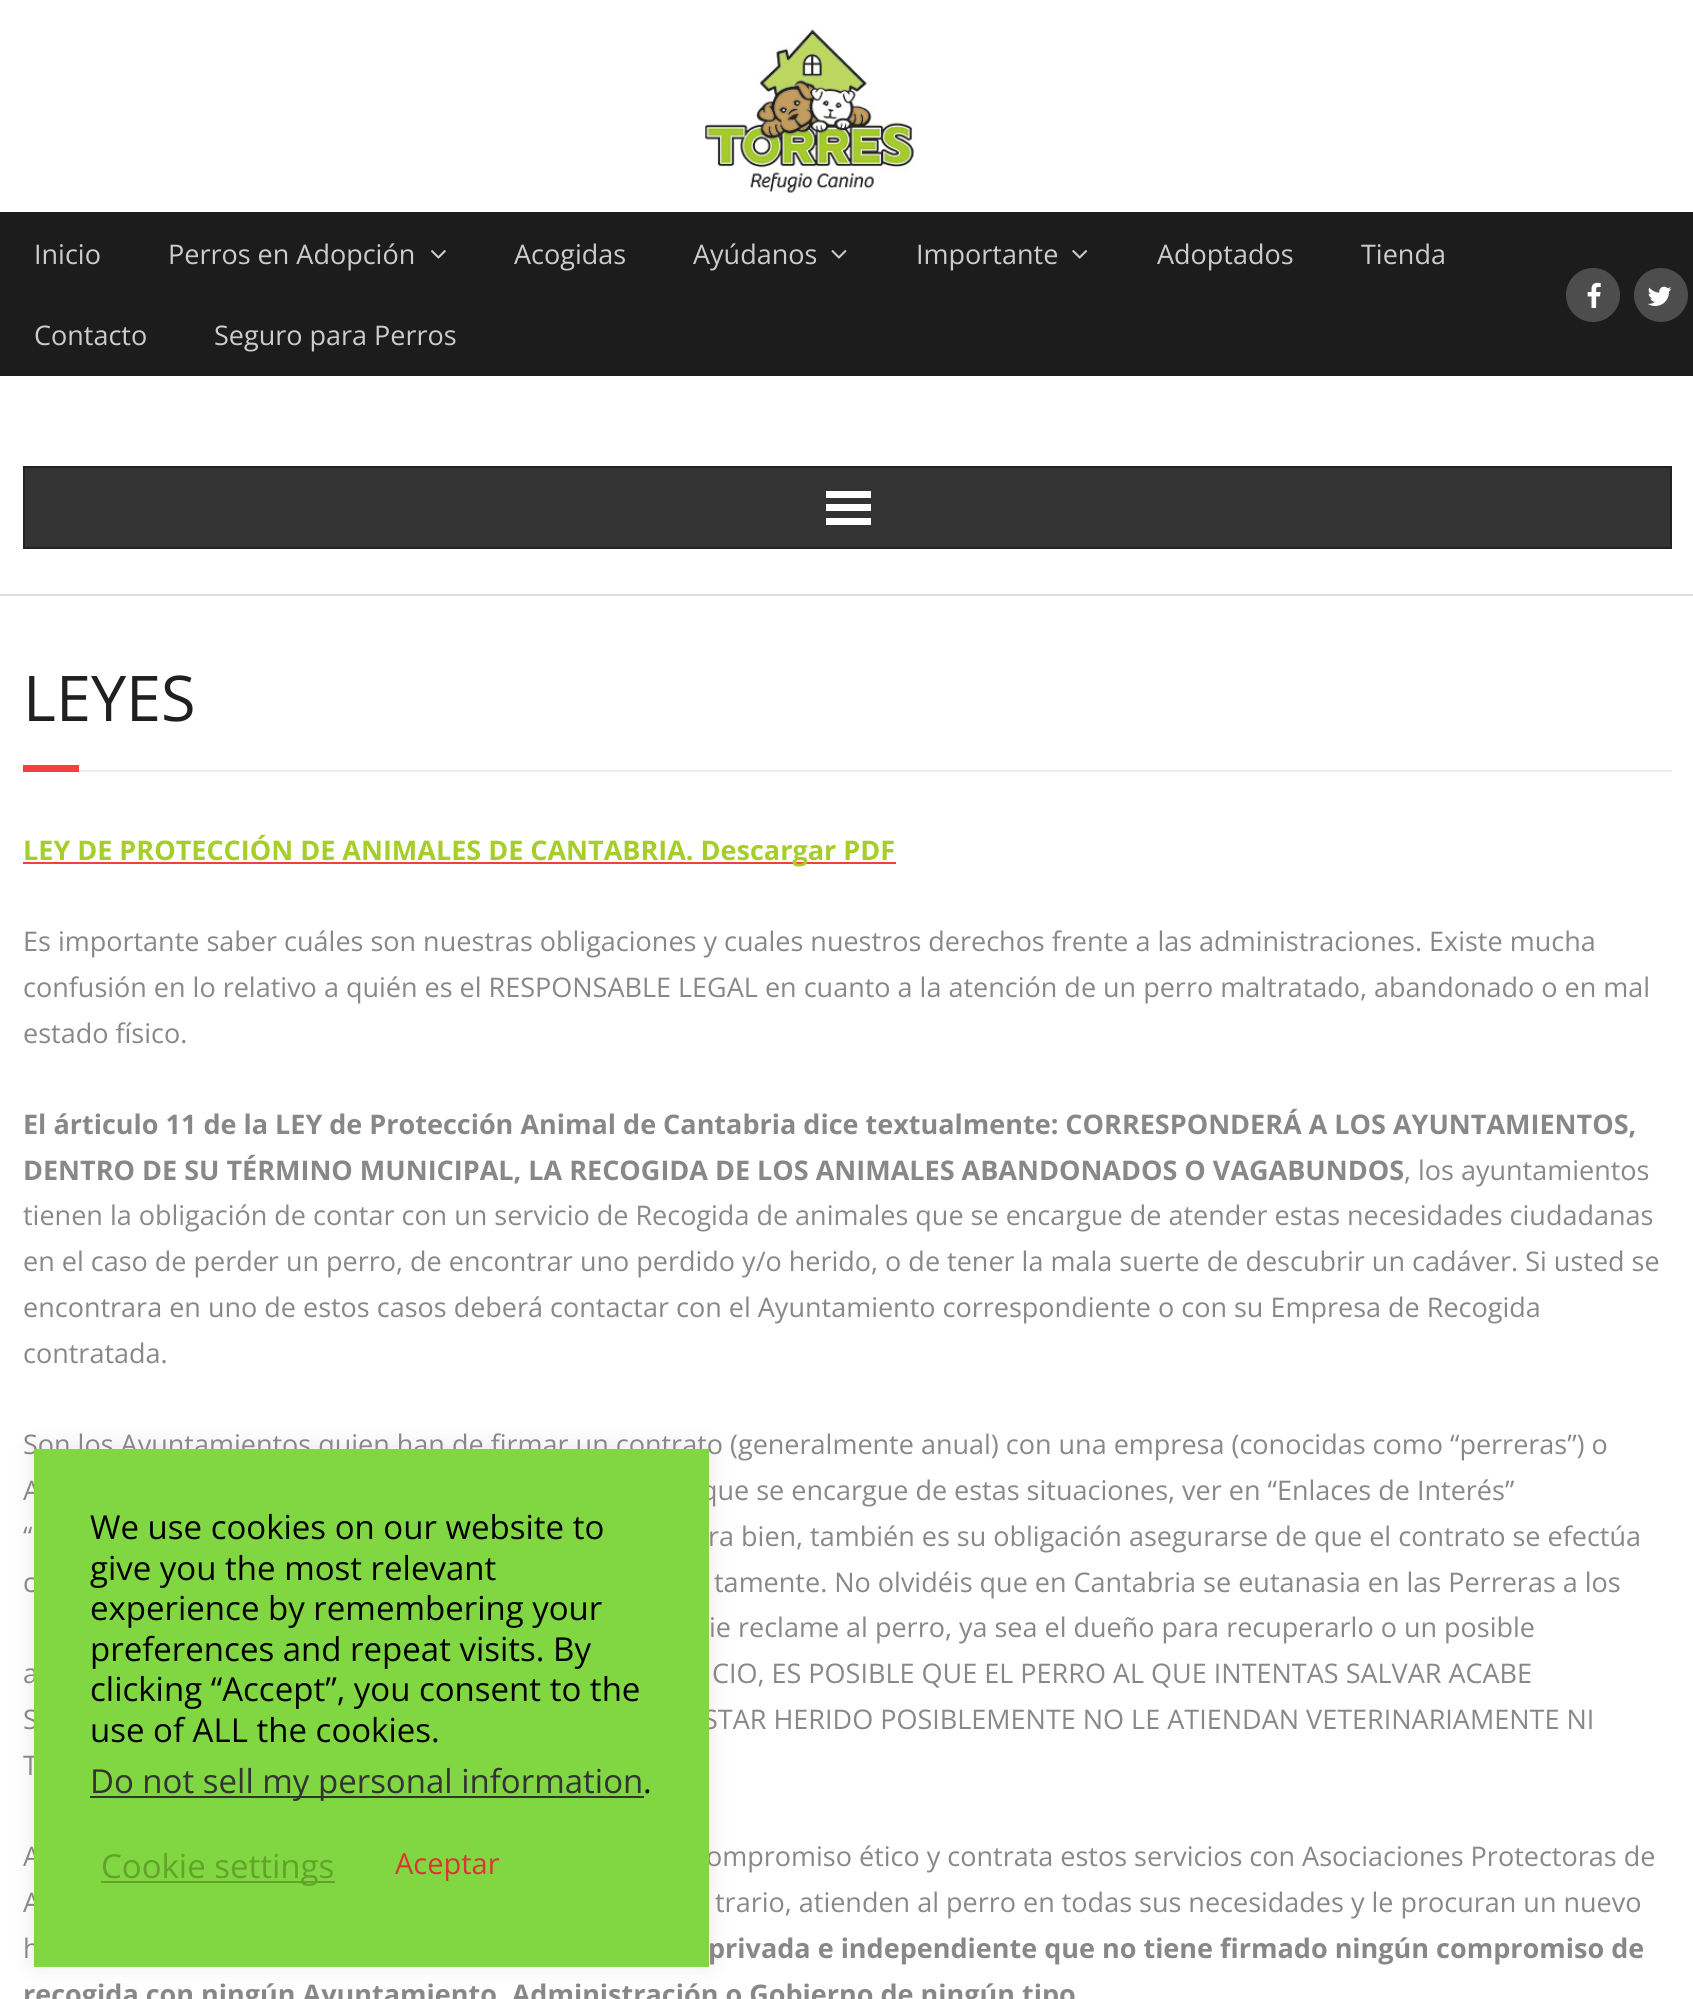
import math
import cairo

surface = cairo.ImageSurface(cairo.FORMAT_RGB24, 1693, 1999)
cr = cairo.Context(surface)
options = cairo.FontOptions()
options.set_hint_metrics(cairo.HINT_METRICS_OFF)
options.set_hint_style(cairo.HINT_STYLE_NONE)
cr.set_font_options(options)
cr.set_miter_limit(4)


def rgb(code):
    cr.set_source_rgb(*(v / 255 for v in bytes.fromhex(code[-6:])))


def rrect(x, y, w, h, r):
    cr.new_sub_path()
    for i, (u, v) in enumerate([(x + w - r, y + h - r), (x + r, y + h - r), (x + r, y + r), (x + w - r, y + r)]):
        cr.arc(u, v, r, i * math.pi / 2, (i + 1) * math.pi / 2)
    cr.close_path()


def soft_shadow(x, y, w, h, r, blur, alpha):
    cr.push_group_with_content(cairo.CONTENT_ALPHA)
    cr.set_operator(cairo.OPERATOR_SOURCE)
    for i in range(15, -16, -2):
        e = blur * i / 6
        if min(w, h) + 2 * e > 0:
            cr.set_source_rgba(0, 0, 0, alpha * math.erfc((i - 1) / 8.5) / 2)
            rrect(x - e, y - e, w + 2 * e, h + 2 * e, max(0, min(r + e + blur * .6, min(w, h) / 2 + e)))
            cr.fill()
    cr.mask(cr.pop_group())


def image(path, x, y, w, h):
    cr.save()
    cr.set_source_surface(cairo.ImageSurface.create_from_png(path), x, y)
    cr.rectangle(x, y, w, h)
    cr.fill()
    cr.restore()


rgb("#ffffff")
cr.paint()
image("img/1.png", 705, 29, 209, 164)
rgb("#1c1c1c")
cr.rectangle(0, 212, 1693, 164)
cr.fill()
image("img/2.png", 431, 250, 15, 9)
image("img/3.png", 831, 250, 16, 9)
image("img/4.png", 1072, 250, 16, 9)
rgb("#4d4d4d")
cr.arc(1593, 295, 27, 0, 2 * math.pi)
cr.fill()
image("img/5.png", 1587, 282, 14, 26)
cr.arc(1661, 295, 27, 0, 2 * math.pi)
cr.fill()
image("img/6.png", 1647, 286, 25, 20)
rgb("#e0e0e0")
cr.rectangle(0, 594, 1693, 2)
cr.fill()
rgb("#333333")
cr.rectangle(24, 467, 1647, 81)
cr.fill_preserve()
rgb("#222222")
cr.stroke()
for x, y, w, h, color in [
    (826, 491, 45, 7, "#ffffff"),
    (826, 504, 45, 7, "#ffffff"),
    (826, 518, 45, 7, "#ffffff"),
    (23, 765, 56, 7, "#f33f3f"),
    (79, 770, 1593, 2, "#eeeeee"),
    (23, 862, 873, 2, "#f33f3f"),
]:
    rgb(color)
    cr.rectangle(x, y, w, h)
    cr.fill()
rgb("#acabab")
soft_shadow(34, 1447, 675, 517, 0, 11, 0.3)
cr.select_font_face("Open Sans")
cr.set_font_size(27)
rgb("#cccccc")
for x, y, s in [
    (34, 264, "Inicio"),
    (168, 264, "Perros en Adopción"),
    (514, 264, "Acogidas"),
    (693, 264, "Ayúdanos"),
    (916, 264, "Importante"),
    (1157, 264, "Adoptados"),
    (1361, 264, "Tienda"),
    (34, 345, "Contacto"),
    (214, 345, "Seguro para Perros"),
]:
    cr.move_to(x, y)
    cr.show_text(s)
cr.set_font_size(63)
rgb("#202020")
cr.move_to(23, 721)
cr.show_text("LEYES")
cr.select_font_face("Open Sans", cairo.FONT_SLANT_NORMAL, cairo.FONT_WEIGHT_BOLD)
cr.set_font_size(27)
rgb("#a7cd2a")
cr.move_to(23, 860)
cr.show_text("LEY DE PROTECCIÓN DE ANIMALES DE CANTABRIA. Descargar PDF")
cr.select_font_face("Open Sans")
rgb("#888888")
for x, y, s in [
    (23, 951, "Es importante saber cuáles son nuestras obligaciones y cuales nuestros derechos frente a las administraciones. Existe mucha"),
    (23, 997, "confusión en lo relativo a quién es el RESPONSABLE LEGAL en cuanto a la atención de un perro maltratado, abandonado o en mal"),
    (23, 1043, "estado físico."),
]:
    cr.move_to(x, y)
    cr.show_text(s)
cr.select_font_face("Open Sans", cairo.FONT_SLANT_NORMAL, cairo.FONT_WEIGHT_BOLD)
cr.move_to(23, 1134)
cr.show_text("El árticulo 11 de la LEY de Protección Animal de Cantabria dice textualmente: CORRESPONDERÁ A LOS AYUNTAMIENTOS,")
cr.move_to(23, 1180)
cr.show_text("DENTRO DE SU TÉRMINO MUNICIPAL, LA RECOGIDA DE LOS ANIMALES ABANDONADOS O VAGABUNDOS")
cr.select_font_face("Open Sans")
for x, y, s in [
    (1404, 1180, ", los ayuntamientos"),
    (23, 1225, "tienen la obligación de contar con un servicio de Recogida de animales que se encargue de atender estas necesidades ciudadanas"),
    (23, 1271, "en el caso de perder un perro, de encontrar uno perdido y/o herido, o de tener la mala suerte de descubrir un cadáver. Si usted se"),
    (23, 1317, "encontrara en uno de estos casos deberá contactar con el Ayuntamiento correspondiente o con su Empresa de Recogida"),
    (23, 1363, "contratada."),
    (23, 1454, "Son los Ayuntamientos quien han de firmar un contrato (generalmente anual) con una empresa (conocidas como “perreras”) o"),
    (23, 1500, "A"),
    (701, 1500, "que se encargue de estas situaciones, ver en “Enlaces de Interés”"),
    (23, 1546, "“"),
    (708, 1546, "ra bien, también es su obligación asegurarse de que el contrato se efectúa"),
    (23, 1592, "c"),
    (714, 1592, "tamente. No olvidéis que en Cantabria se eutanasia en las Perreras a los"),
    (709, 1637, "ie reclame al perro, ya sea el dueño para recuperarlo o un posible"),
    (23, 1683, "a"),
    (712, 1683, "CIO, ES POSIBLE QUE EL PERRO AL QUE INTENTAS SALVAR ACABE"),
    (23, 1729, "S"),
    (703, 1729, "STAR HERIDO POSIBLEMENTE NO LE ATIENDAN VETERINARIAMENTE NI"),
    (23, 1775, "T"),
    (23, 1866, "A"),
    (706, 1866, "ompromiso ético y contrata estos servicios con Asociaciones Protectoras de"),
    (23, 1912, "A"),
    (715, 1912, "trario, atienden al perro en todas sus necesidades y le procuran un nuevo"),
    (23, 1958, "h"),
]:
    cr.move_to(x, y)
    cr.show_text(s)
cr.select_font_face("Open Sans", cairo.FONT_SLANT_NORMAL, cairo.FONT_WEIGHT_BOLD)
cr.move_to(708, 1958)
cr.show_text("privada e independiente que no tiene firmado ningún compromiso de")
cr.move_to(23, 2004)
cr.show_text("recogida con ningún Ayuntamiento, Administración o Gobierno de ningún tipo")
rgb("#81d742")
cr.rectangle(34, 1449, 675, 518)
cr.fill()
cr.select_font_face("Open Sans")
cr.set_font_size(33)
rgb("#000000")
for x, y, s in [
    (90, 1539, "We use cookies on our website to"),
    (90, 1580, "give you the most relevant"),
    (90, 1620, "experience by remembering your"),
    (90, 1661, "preferences and repeat visits. By"),
    (90, 1701, "clicking “Accept”, you consent to the"),
    (90, 1742, "use of ALL the cookies."),
]:
    cr.move_to(x, y)
    cr.show_text(s)
rgb("#333333")
cr.rectangle(90, 1796, 554, 2)
cr.fill()
cr.move_to(90, 1793)
cr.show_text("Do not sell my personal information")
rgb("#000000")
cr.move_to(643, 1793)
cr.show_text(".")
rgb("#62a329")
cr.rectangle(101, 1881, 234, 2)
cr.fill()
cr.move_to(101, 1878)
cr.show_text("Cookie settings")
cr.set_font_size(29)
rgb("#dd3333")
cr.move_to(395, 1874)
cr.show_text("Aceptar")
surface.write_to_png("page.png")
